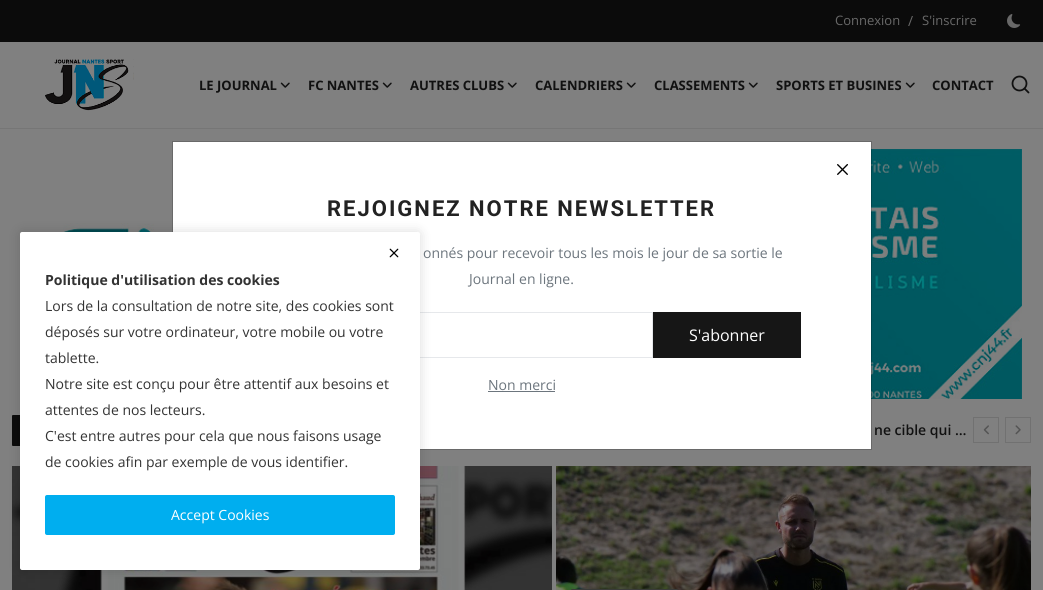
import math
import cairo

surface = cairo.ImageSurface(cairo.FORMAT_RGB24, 1043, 590)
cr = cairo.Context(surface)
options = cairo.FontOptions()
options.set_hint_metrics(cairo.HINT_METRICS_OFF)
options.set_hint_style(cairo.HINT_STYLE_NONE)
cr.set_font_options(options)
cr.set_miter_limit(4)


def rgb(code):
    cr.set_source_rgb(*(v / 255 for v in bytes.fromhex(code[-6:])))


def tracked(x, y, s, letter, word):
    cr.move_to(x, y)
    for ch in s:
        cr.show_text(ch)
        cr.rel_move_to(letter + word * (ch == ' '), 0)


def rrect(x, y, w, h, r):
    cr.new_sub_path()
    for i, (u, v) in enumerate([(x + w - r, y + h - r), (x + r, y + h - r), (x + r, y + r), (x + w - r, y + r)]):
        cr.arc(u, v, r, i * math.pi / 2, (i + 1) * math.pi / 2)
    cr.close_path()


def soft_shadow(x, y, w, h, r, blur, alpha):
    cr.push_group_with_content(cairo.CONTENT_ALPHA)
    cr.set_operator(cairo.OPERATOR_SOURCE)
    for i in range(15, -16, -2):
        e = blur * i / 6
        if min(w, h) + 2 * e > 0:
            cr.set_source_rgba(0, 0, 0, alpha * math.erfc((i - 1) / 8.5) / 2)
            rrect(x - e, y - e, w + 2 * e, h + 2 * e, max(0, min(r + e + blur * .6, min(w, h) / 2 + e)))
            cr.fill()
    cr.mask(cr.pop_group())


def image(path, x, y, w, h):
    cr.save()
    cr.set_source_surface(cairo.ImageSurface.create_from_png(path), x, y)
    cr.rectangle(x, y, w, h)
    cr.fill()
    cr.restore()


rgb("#808080")
cr.paint()
rgb("#0b0b0b")
cr.rectangle(0, 0, 1043, 42)
cr.fill()
image("img/1.png", 1007, 14, 14, 14)
rgb("#767676")
cr.rectangle(0, 128, 1043, 1)
cr.fill()
image("img/2.png", 45, 59, 89, 52)
image("img/3.png", 280, 82, 10, 6)
image("img/3.png", 382, 82, 10, 6)
image("img/3.png", 507, 82, 10, 6)
image("img/3.png", 626, 82, 10, 6)
image("img/3.png", 748, 82, 10, 6)
image("img/3.png", 905, 82, 10, 6)
cr.arc(1019.5, 83.5, 7, 0, 2 * math.pi)
rgb("#111111")
cr.set_line_width(1.8)
cr.stroke()
cr.new_path()
cr.move_to(1028.5, 92.5)
cr.line_to(1024.5, 88.5)
cr.set_line_cap(cairo.LINE_CAP_ROUND)
cr.set_line_join(cairo.LINE_JOIN_ROUND)
cr.stroke()
image("img/4.png", 55, 149, 967, 250)
rgb("#ffffff")
cr.rectangle(173, 142, 698, 307)
cr.fill()
cr.rectangle(172.5, 141.5, 699, 308)
cr.set_source_rgba(0, 0, 0, 0.18)
cr.set_line_width(1)
cr.set_line_cap(cairo.LINE_CAP_BUTT)
cr.set_line_join(cairo.LINE_JOIN_MITER)
cr.stroke()
cr.rectangle(243.5, 312.5, 409, 45)
rgb("#e6e8eb")
cr.stroke()
rgb("#0b0b0b")
rrect(12, 415, 160, 31, 1)
cr.fill()
image("img/9.png", 12, 466, 540, 124)
rgb("#000000")
soft_shadow(20, 232, 400, 338, 2, 6, 0.14)
rgb("#ffffff")
rrect(20, 232, 400, 338, 2)
cr.fill()
image("img/5.png", 389, 248, 10, 10)
rgb("#00aeef")
rrect(45, 495, 350, 40, 2)
cr.fill()
image("img/6.png", 837, 164, 11, 11)
rgb("#161616")
cr.rectangle(653, 312, 148, 46)
cr.fill()
rgb("#6c757d")
cr.rectangle(488, 391, 67, 1)
cr.fill()
cr.rectangle(973.5, 417.5, 25, 25)
rgb("#717171")
cr.stroke()
image("img/7.png", 983, 425, 6, 10)
cr.rectangle(1005.5, 417.5, 25, 25)
cr.stroke()
image("img/8.png", 1015, 425, 6, 10)
image("img/10.png", 556, 466, 475, 124)
rgb("#393b39")
rrect(571, 589, 107, 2, 1)
cr.fill()
cr.select_font_face("Open Sans")
cr.set_font_size(13)
rgb("#696969")
cr.move_to(835, 25)
cr.show_text("Connexion")
cr.set_font_size(14)
cr.move_to(908, 26)
cr.show_text("/")
cr.set_font_size(13)
cr.move_to(922, 25)
cr.show_text("S'inscrire")
cr.select_font_face("Open Sans", cairo.FONT_SLANT_NORMAL, cairo.FONT_WEIGHT_BOLD)
rgb("#111111")
for x, y, s in [
    (199, 90, "LE JOURNAL"),
    (308, 90, "FC NANTES"),
    (410, 90, "AUTRES CLUBS"),
    (535, 90, "CALENDRIERS"),
    (654, 90, "CLASSEMENTS"),
    (776, 90, "SPORTS ET BUSINES"),
    (932, 90, "CONTACT"),
]:
    cr.move_to(x, y)
    cr.show_text(s)
cr.set_font_size(14)
rgb("#333333")
cr.move_to(45, 285)
cr.show_text("Politique d'utilisation des cookies")
cr.select_font_face("Open Sans")
for x, y, s in [
    (45, 311, "Lors de la consultation de notre site, des cookies sont"),
    (45, 337, "déposés sur votre ordinateur, votre mobile ou votre"),
    (45, 363, "tablette."),
    (45, 389, "Notre site est conçu pour être attentif aux besoins et"),
    (45, 415, "attentes de nos lecteurs."),
    (45, 441, "C'est entre autres pour cela que nous faisons usage"),
    (45, 467, "de cookies afin par exemple de vous identifier."),
]:
    cr.move_to(x, y)
    cr.show_text(s)
rgb("#ffffff")
cr.move_to(171, 520)
cr.show_text("Accept Cookies")
cr.select_font_face("Roboto", cairo.FONT_SLANT_NORMAL, cairo.FONT_WEIGHT_BOLD)
cr.set_font_size(22)
rgb("#222222")
tracked(327, 216, "REJOIGNEZ NOTRE NEWSLETTER", 2, 0)
cr.select_font_face("Open Sans")
cr.set_font_size(14)
rgb("#6c757d")
cr.move_to(423, 258)
cr.show_text("onnés pour recevoir tous les mois le jour de sa sortie le")
cr.move_to(469, 284)
cr.show_text("Journal en ligne.")
cr.set_font_size(16)
rgb("#ffffff")
cr.move_to(689, 341)
cr.show_text("S'abonner")
cr.set_font_size(14)
rgb("#6c757d")
cr.move_to(488, 390)
cr.show_text("Non merci")
cr.select_font_face("Open Sans SemiBold")
rgb("#111111")
cr.move_to(874, 435)
cr.show_text("ne cible qui …")
surface.write_to_png("page.png")
